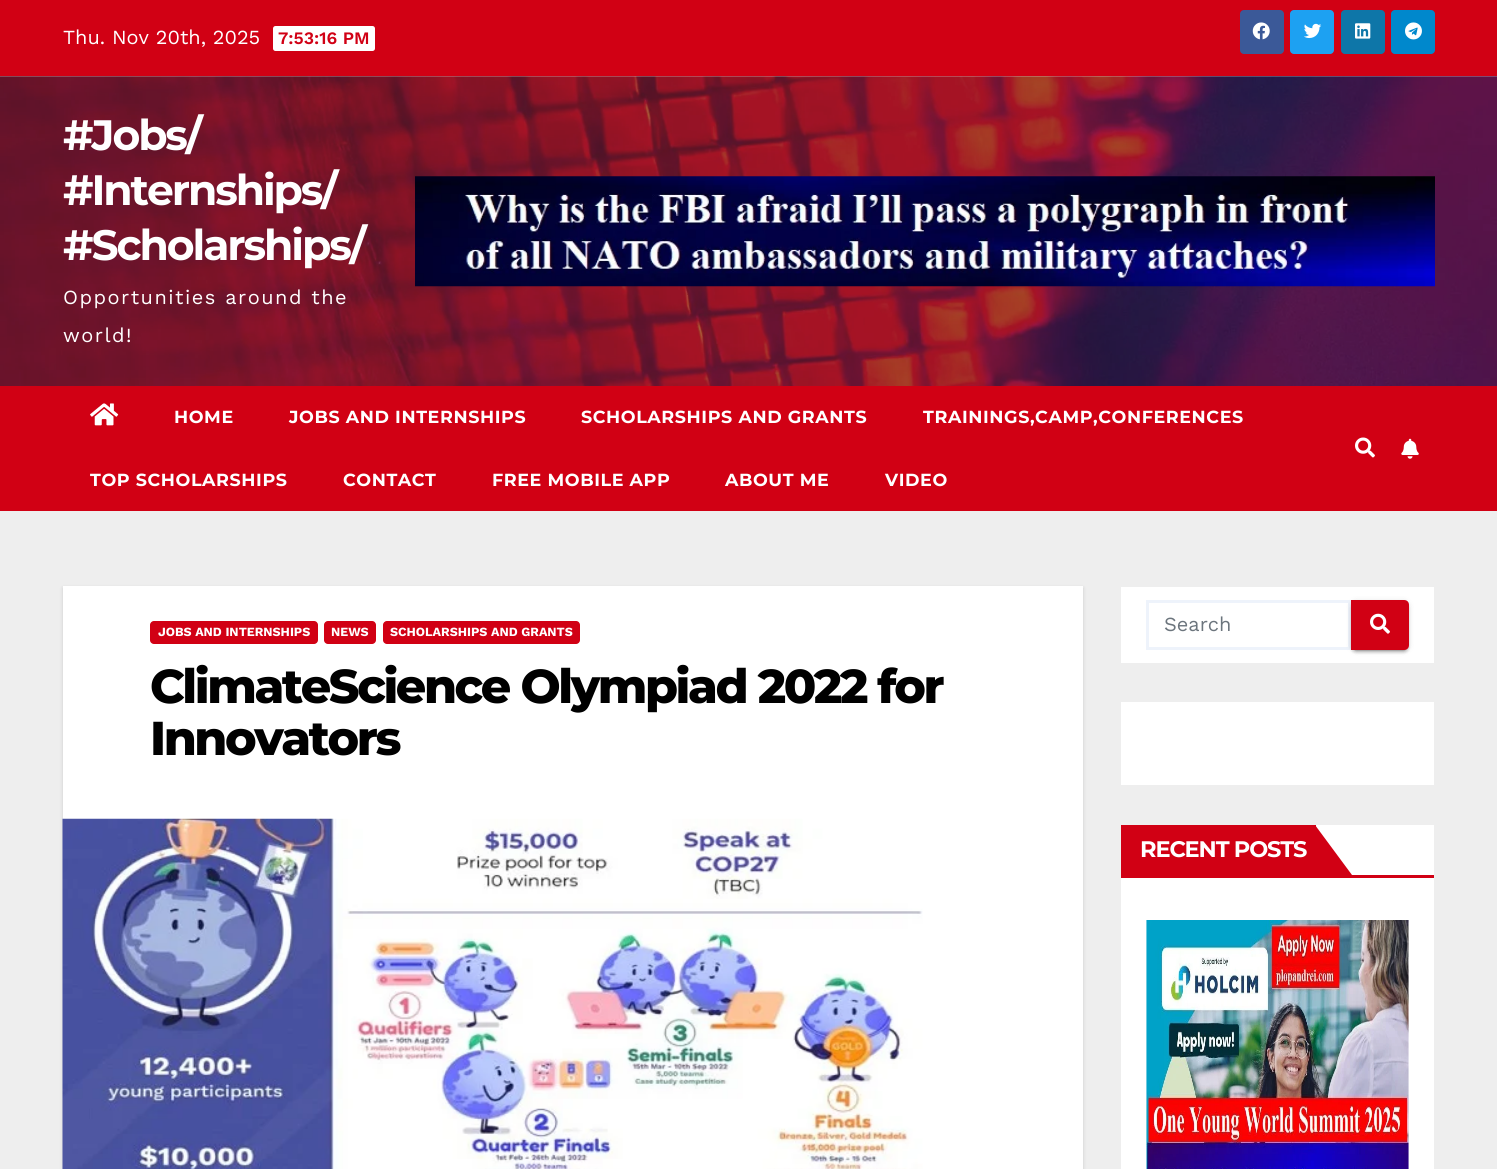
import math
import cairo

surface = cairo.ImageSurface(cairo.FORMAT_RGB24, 1497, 1169)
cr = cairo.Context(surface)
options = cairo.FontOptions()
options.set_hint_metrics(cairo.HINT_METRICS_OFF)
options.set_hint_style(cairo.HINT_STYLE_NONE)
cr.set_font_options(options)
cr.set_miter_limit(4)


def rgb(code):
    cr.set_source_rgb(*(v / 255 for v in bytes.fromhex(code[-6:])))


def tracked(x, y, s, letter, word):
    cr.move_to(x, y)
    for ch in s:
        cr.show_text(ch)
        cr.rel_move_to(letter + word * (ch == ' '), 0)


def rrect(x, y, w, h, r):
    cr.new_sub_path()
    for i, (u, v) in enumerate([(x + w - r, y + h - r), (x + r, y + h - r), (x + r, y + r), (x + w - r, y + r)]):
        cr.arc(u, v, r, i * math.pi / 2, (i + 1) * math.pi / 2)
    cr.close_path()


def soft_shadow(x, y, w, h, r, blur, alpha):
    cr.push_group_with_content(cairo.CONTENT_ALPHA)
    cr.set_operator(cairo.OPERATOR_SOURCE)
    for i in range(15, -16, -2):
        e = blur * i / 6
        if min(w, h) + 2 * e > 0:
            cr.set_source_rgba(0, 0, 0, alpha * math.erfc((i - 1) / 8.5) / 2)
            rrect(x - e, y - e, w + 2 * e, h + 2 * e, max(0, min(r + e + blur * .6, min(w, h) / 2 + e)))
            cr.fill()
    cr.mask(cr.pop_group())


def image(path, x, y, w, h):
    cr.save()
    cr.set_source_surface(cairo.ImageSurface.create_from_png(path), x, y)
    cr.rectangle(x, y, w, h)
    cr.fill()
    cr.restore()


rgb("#eeeeee")
cr.paint()
rgb("#d10014")
cr.rectangle(0, 0, 1497, 76)
cr.fill()
rgb("#ffffff")
rrect(273, 26, 102, 25, 2.5)
cr.fill()
rgb("#3b5998")
rrect(1240, 10, 44, 44, 4)
cr.fill()
image("img/1.png", 1252, 22, 18, 18)
rgb("#1da1f2")
rrect(1290, 10, 44, 44, 4)
cr.fill()
image("img/2.png", 1304, 23, 18, 16)
rgb("#0e76a8")
rrect(1341, 10, 44, 44, 4)
cr.fill()
image("img/3.png", 1355, 23, 16, 16)
rgb("#0088cc")
rrect(1391, 10, 44, 44, 4)
cr.fill()
image("img/4.png", 1405, 22, 17, 18)
image("img/5.png", 0, 76, 1497, 310)
image("img/6.png", 415, 176, 1020, 111)
rgb("#d10014")
cr.rectangle(0, 386, 1497, 125)
cr.fill()
image("img/7.png", 90, 403, 29, 23)
image("img/8.png", 1355, 437, 20, 21)
image("img/9.png", 1401, 438, 18, 21)
rgb("#000000")
soft_shadow(63, 588, 1020, 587, 0, 2, 0.15)
rgb("#ffffff")
cr.rectangle(63, 586, 1020, 583)
cr.fill()
rgb("#d10014")
rrect(150, 621, 168, 23, 4)
cr.fill()
rrect(324, 621, 52, 23, 4)
cr.fill()
rrect(383, 621, 197, 23, 4)
cr.fill()
image("img/10.png", 62, 818, 861, 351)
rgb("#ffffff")
cr.rectangle(1121, 587, 313, 76)
cr.fill()
cr.rectangle(1147.5, 601.5, 202, 47)
rgb("#eef3fb")
cr.set_line_width(3)
cr.stroke()
rgb("#000000")
soft_shadow(1351, 601, 58, 50, 5, 3, 0.12)
soft_shadow(1354, 606, 52, 45, 2.5, 0.5, 0.2)
soft_shadow(1351, 603, 58, 50, 5, 1, 0.14)
rgb("#d10014")
cr.new_path()
cr.move_to(1351, 600)
cr.line_to(1404, 600)
cr.curve_to(1407, 600, 1409, 602, 1409, 605)
cr.line_to(1409, 645)
cr.curve_to(1409, 648, 1407, 650, 1404, 650)
cr.line_to(1351, 650)
cr.close_path()
cr.fill()
image("img/11.png", 1370, 613, 20, 21)
for x, y, w, h, color in [
    (1121, 702, 313, 83, "#ffffff"),
    (1121, 825, 313, 344, "#ffffff"),
    (1121, 875, 313, 3, "#d10014"),
    (1121, 825, 195, 50, "#d10014"),
]:
    rgb(color)
    cr.rectangle(x, y, w, h)
    cr.fill()
cr.new_path()
cr.move_to(1315, 875)
cr.line_to(1315, 825)
cr.line_to(1352, 875)
cr.close_path()
cr.fill()
image("img/12.png", 1146, 920, 263, 249)
cr.select_font_face("Work Sans")
cr.set_font_size(20)
rgb("#ffffff")
cr.move_to(63, 44)
cr.show_text("Thu. Nov 20th, 2025")
cr.select_font_face("Work Sans SemiBold")
cr.set_font_size(17.5)
rgb("#d10014")
cr.move_to(278, 44)
cr.show_text("7:53:16 PM")
cr.select_font_face("Montserrat", cairo.FONT_SLANT_NORMAL, cairo.FONT_WEIGHT_BOLD)
cr.set_font_size(42.5)
rgb("#ffffff")
for x, y, s in [
    (63, 150, "#Jobs/"),
    (63, 205, "#Internships/"),
    (63, 260, "#Scholarships/"),
]:
    tracked(x, y, s, -2.1, 0)
cr.select_font_face("Work Sans")
cr.set_font_size(20)
tracked(63, 304, "Opportunities around the", 1.5, 0)
tracked(63, 342, "world!", 1.5, 0)
cr.select_font_face("Montserrat", cairo.FONT_SLANT_NORMAL, cairo.FONT_WEIGHT_BOLD)
cr.set_font_size(17.5)
for x, y, s in [
    (174, 423, "HOME"),
    (289, 423, "JOBS AND INTERNSHIPS"),
    (581, 423, "SCHOLARSHIPS AND GRANTS"),
    (923, 423, "TRAININGS,CAMP,CONFERENCES"),
    (90, 486, "TOP SCHOLARSHIPS"),
    (343, 486, "CONTACT"),
    (492, 486, "FREE MOBILE APP"),
    (725, 486, "ABOUT ME"),
    (885, 486, "VIDEO"),
]:
    tracked(x, y, s, 0.6, 0)
cr.select_font_face("Work Sans", cairo.FONT_SLANT_NORMAL, cairo.FONT_WEIGHT_BOLD)
cr.set_font_size(12.5)
for x, y, s in [
    (158, 636, "JOBS AND INTERNSHIPS"),
    (331, 636, "NEWS"),
    (390, 636, "SCHOLARSHIPS AND GRANTS"),
]:
    cr.move_to(x, y)
    cr.show_text(s)
cr.select_font_face("Montserrat ExtraBold")
cr.set_font_size(47.5)
rgb("#000000")
tracked(150, 703, "ClimateScience Olympiad 2022 for", -2.4, 0)
tracked(150, 755, "Innovators", -2.4, 0)
cr.select_font_face("Work Sans")
cr.set_font_size(20)
rgb("#6c757d")
cr.move_to(1164, 631)
cr.show_text("Search")
cr.select_font_face("Montserrat", cairo.FONT_SLANT_NORMAL, cairo.FONT_WEIGHT_BOLD)
cr.set_font_size(22.5)
rgb("#ffffff")
tracked(1140, 857, "RECENT POSTS", -1.1, 0)
surface.write_to_png("page.png")
